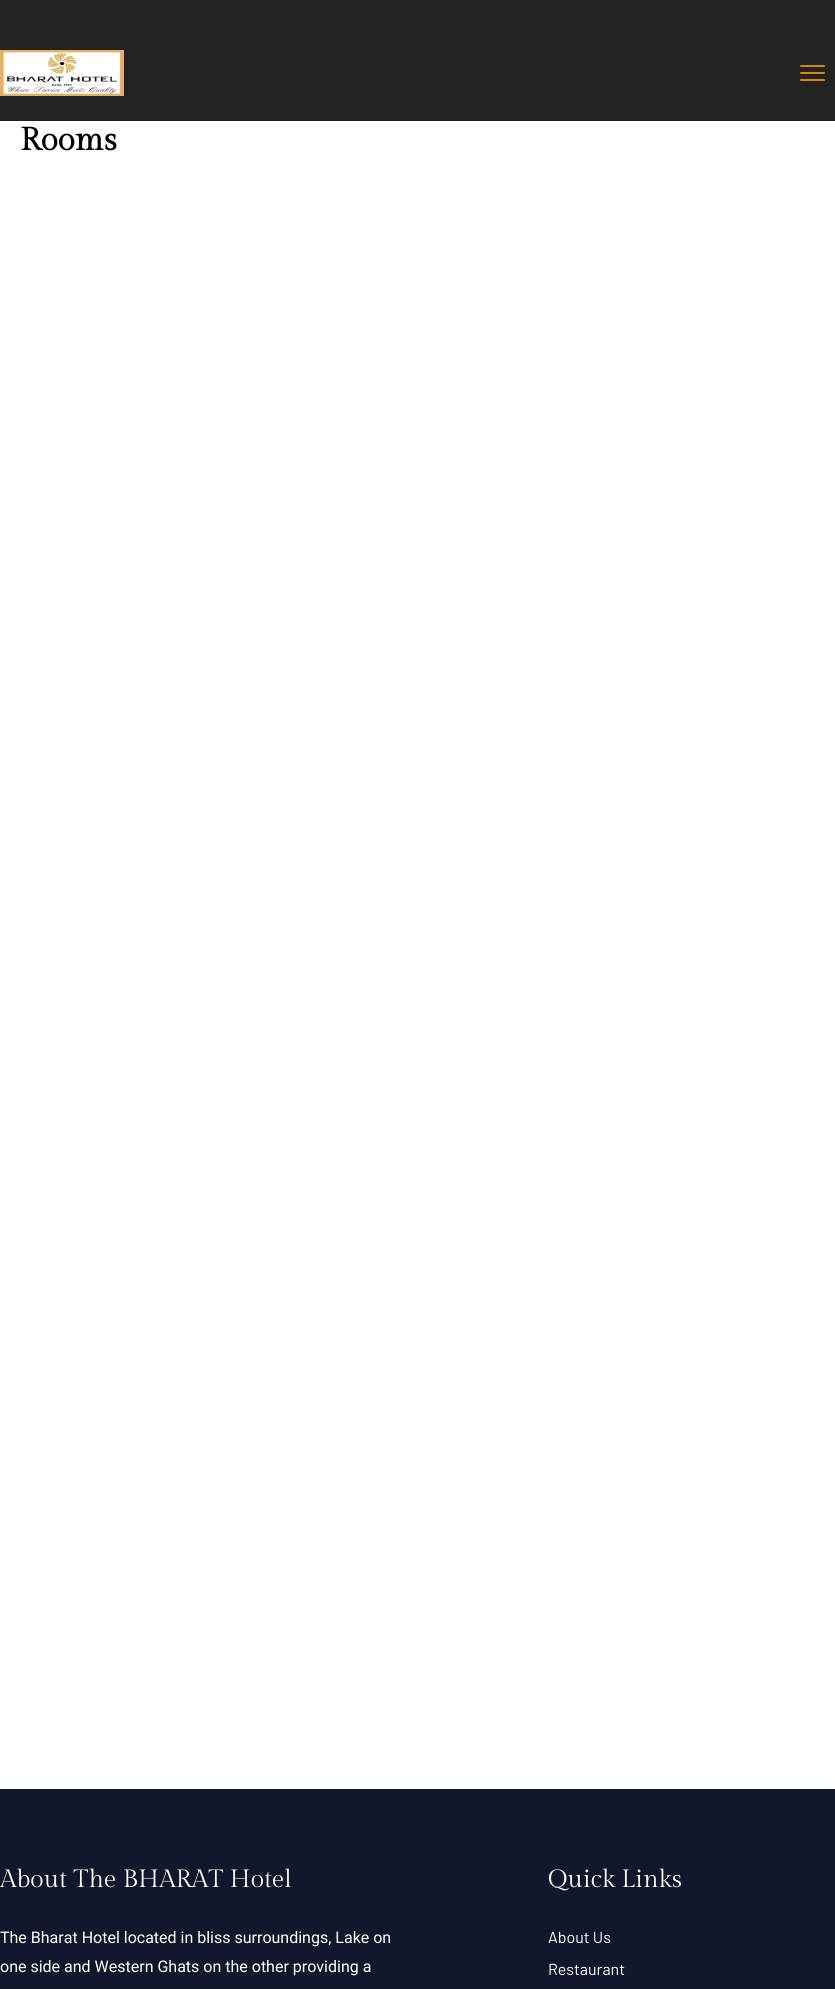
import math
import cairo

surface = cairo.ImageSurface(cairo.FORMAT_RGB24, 835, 1989)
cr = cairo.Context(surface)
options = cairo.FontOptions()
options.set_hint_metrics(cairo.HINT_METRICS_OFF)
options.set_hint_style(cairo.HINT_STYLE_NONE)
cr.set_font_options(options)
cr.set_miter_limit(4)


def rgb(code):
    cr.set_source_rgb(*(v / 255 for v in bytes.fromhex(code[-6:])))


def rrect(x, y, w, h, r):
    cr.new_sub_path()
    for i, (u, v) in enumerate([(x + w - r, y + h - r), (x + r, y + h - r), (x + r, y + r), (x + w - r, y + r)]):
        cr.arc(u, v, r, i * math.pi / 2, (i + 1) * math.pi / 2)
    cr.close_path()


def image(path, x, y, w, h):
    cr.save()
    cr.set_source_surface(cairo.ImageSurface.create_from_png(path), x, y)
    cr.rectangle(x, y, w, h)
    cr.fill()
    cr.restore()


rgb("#ffffff")
cr.paint()
rgb("#222222")
cr.rectangle(0, 0, 835, 121)
cr.fill()
image("img/1.png", 0, 50, 124, 46)
rgb("#d98600")
rrect(800, 65, 25, 2, 1)
cr.fill()
rrect(800, 72, 25, 2, 1)
cr.fill()
rrect(800, 79, 25, 2, 1)
cr.fill()
rgb("#13172b")
cr.rectangle(0, 1789, 835, 200)
cr.fill()
cr.select_font_face("Gilda Display", cairo.FONT_SLANT_NORMAL, cairo.FONT_WEIGHT_BOLD)
cr.set_font_size(32)
rgb("#000000")
cr.move_to(20, 150)
cr.show_text("Rooms")
cr.select_font_face("Gilda Display")
cr.set_font_size(25)
rgb("#ffffff")
cr.move_to(0, 1887)
cr.show_text("About The BHARAT Hotel")
cr.select_font_face("Roboto")
cr.set_font_size(16)
cr.move_to(0, 1943)
cr.show_text("The Bharat Hotel located in bliss surroundings, Lake on")
cr.move_to(0, 1972)
cr.show_text("one side and Western Ghats on the other providing a")
cr.select_font_face("Gilda Display")
cr.set_font_size(25)
cr.move_to(548, 1887)
cr.show_text("Quick Links")
cr.select_font_face("Barlow")
cr.set_font_size(16)
cr.move_to(548, 1943)
cr.show_text("About Us")
cr.move_to(548, 1975)
cr.show_text("Restaurant")
surface.write_to_png("page.png")
